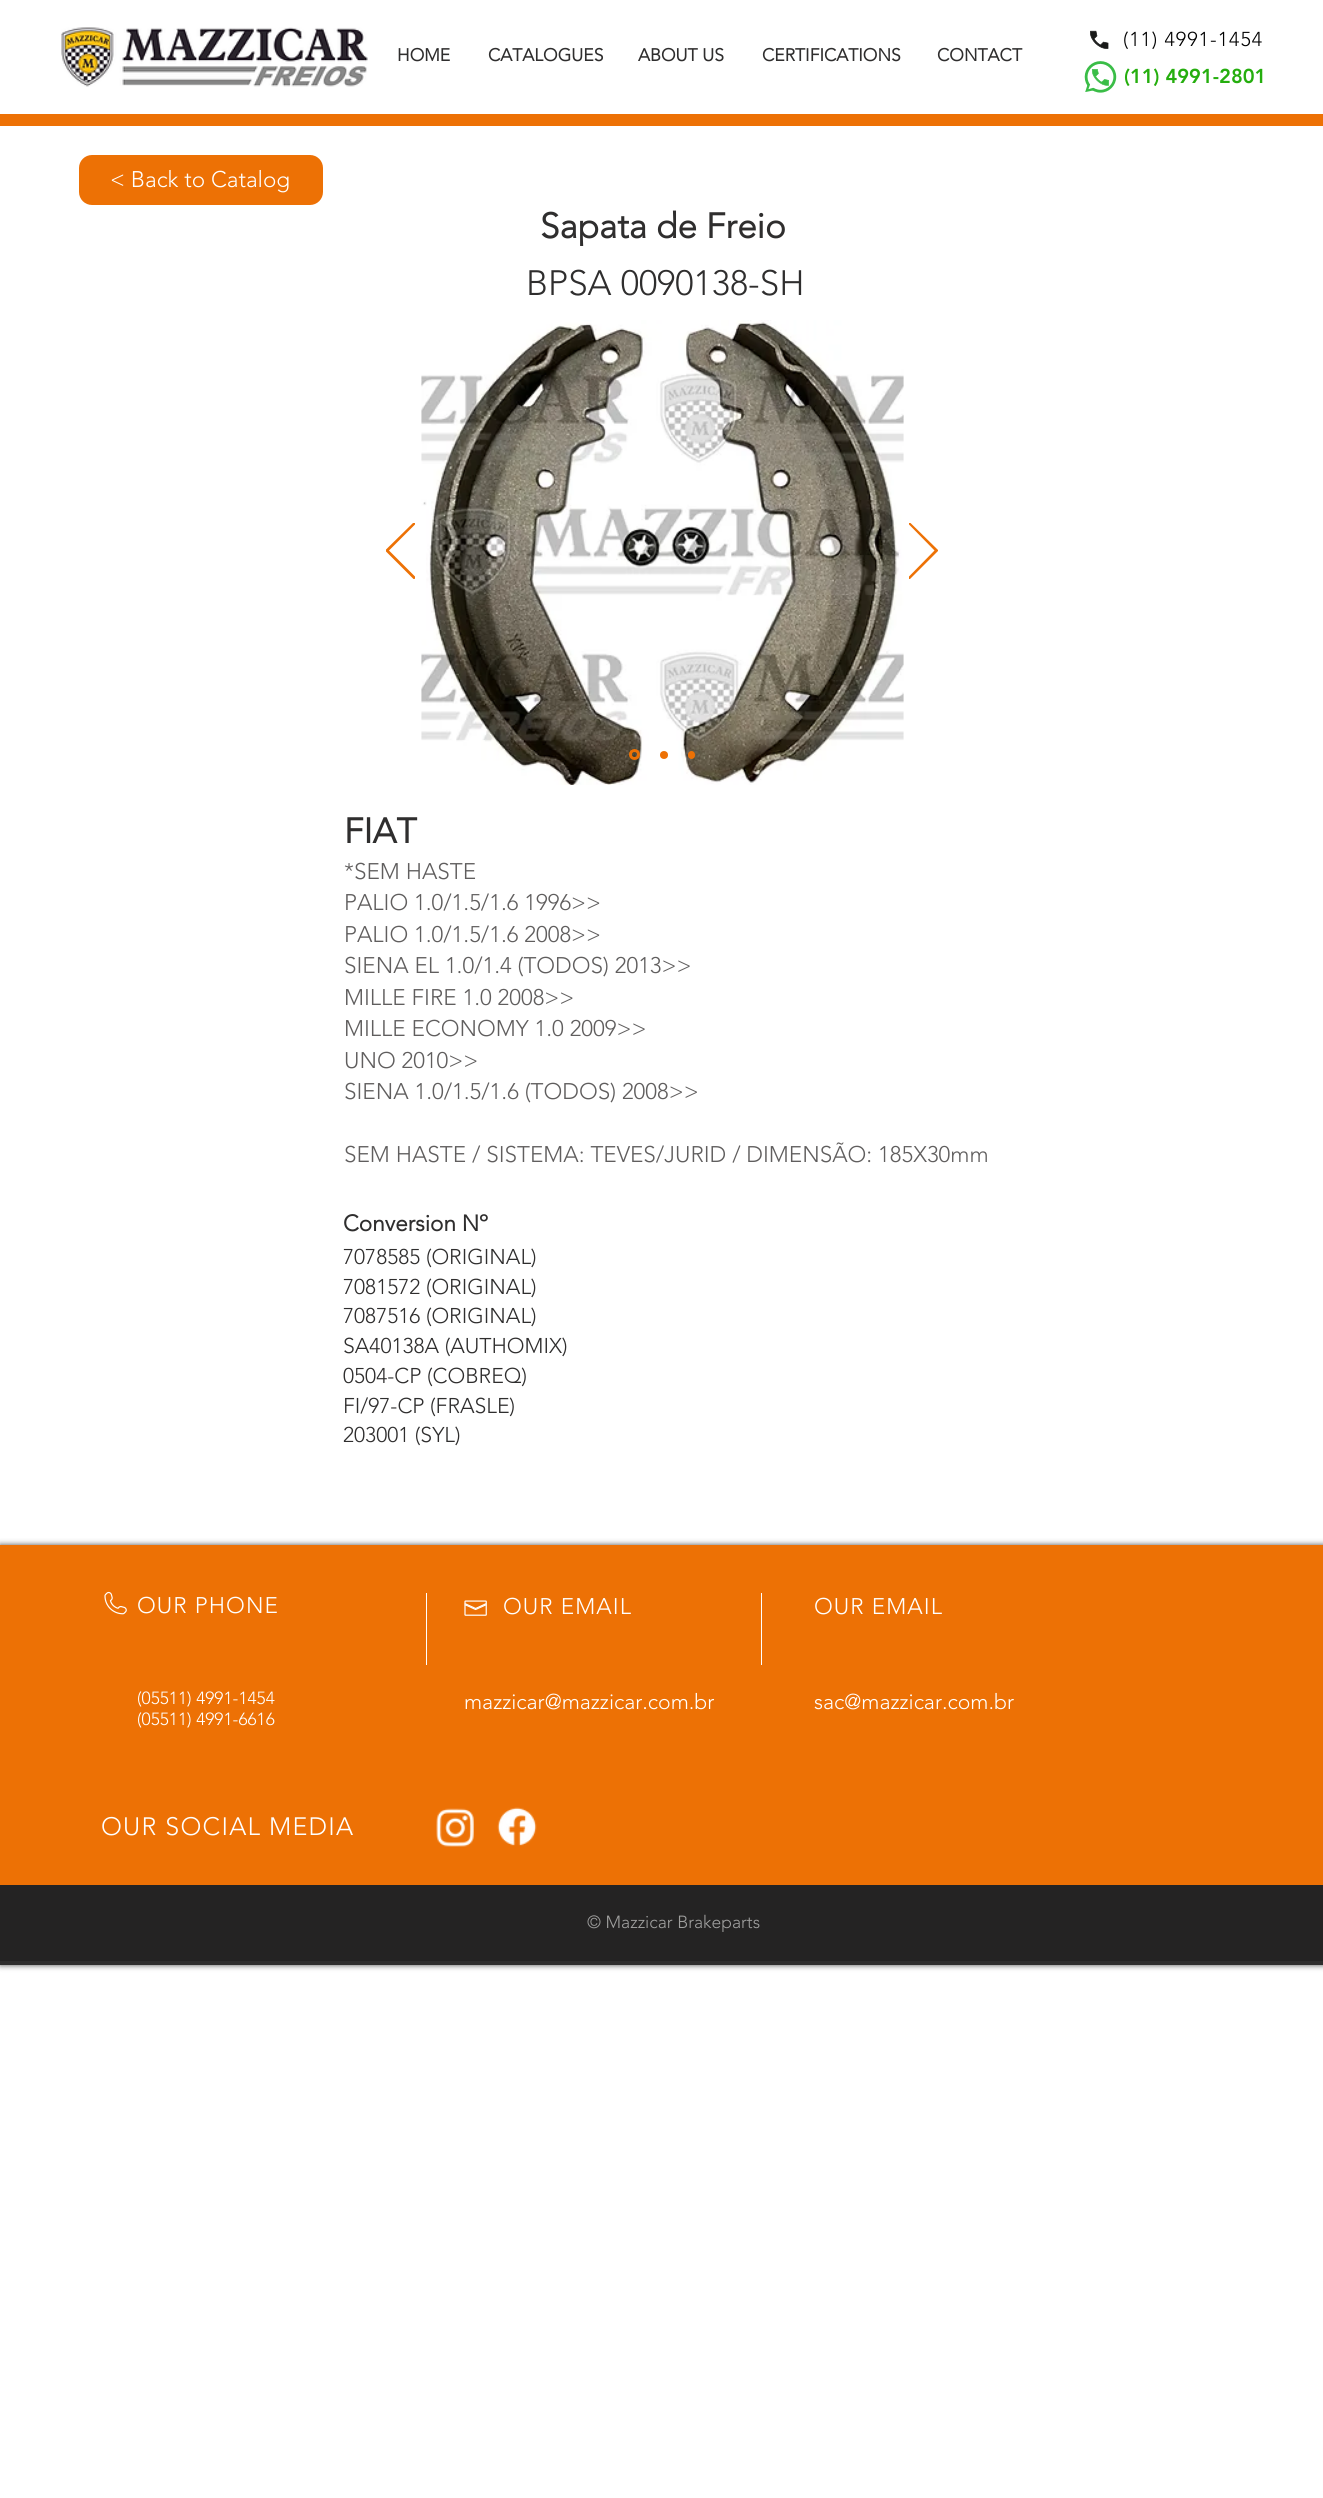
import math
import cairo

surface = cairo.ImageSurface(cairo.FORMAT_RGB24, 1323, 2498)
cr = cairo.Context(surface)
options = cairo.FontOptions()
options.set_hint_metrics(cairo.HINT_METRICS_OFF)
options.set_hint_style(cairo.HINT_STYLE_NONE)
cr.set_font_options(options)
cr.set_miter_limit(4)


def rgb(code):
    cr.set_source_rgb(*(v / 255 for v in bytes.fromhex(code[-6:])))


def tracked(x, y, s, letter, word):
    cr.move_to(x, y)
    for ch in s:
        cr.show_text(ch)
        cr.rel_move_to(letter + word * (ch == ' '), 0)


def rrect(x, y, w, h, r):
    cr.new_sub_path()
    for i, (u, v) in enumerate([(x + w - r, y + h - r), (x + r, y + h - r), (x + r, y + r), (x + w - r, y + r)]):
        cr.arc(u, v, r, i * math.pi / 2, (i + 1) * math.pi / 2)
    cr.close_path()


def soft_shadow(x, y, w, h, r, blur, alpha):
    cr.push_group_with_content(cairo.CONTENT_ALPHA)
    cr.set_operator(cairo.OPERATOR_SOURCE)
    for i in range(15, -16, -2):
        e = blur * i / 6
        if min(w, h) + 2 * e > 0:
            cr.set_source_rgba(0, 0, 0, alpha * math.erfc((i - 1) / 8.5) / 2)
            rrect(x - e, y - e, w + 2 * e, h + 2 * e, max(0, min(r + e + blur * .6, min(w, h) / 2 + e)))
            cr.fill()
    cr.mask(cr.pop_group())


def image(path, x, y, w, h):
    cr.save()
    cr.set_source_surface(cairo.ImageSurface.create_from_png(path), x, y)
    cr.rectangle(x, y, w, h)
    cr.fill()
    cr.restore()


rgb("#ffffff")
cr.paint()
image("img/1.png", 61, 27, 307, 60)
image("img/2.png", 1090, 30, 19, 19)
image("img/3.png", 1084, 61, 33, 32)
rgb("#ed7105")
cr.rectangle(0, 114, 1323, 12)
cr.fill()
rrect(79, 155, 244, 50, 13)
cr.fill()
cr.save()
cr.rectangle(386, 523, 29, 56)
cr.clip()
cr.new_path()
cr.move_to(414, 578.5)
cr.line_to(386, 550.5)
cr.line_to(414, 523)
cr.line_to(415, 523.5)
cr.line_to(388, 550.5)
cr.line_to(415, 577.5)
cr.close_path()
cr.set_line_width(1.4)
cr.stroke()
cr.restore()
image("img/4.png", 421, 320, 483, 465)
cr.save()
cr.rectangle(909, 523, 29, 56)
cr.clip()
cr.new_path()
cr.move_to(909.5, 578.5)
cr.line_to(937.5, 550.5)
cr.line_to(909.5, 523)
cr.line_to(909, 523.5)
cr.line_to(935.5, 550.5)
cr.line_to(909, 577.5)
cr.close_path()
cr.set_line_width(1.4)
cr.stroke()
cr.restore()
cr.arc(634.5, 754.5, 4, 0, 2 * math.pi)
cr.set_line_width(3)
cr.stroke()
cr.arc(664, 755, 4, 0, 2 * math.pi)
cr.fill()
rrect(688, 751, 7, 8, 3.5)
cr.fill()
rgb("#000000")
soft_shadow(0, 1545, 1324, 420, 0, 3, 0.7)
rgb("#2f2e2e")
cr.rectangle(0, 1961, 1323, 4)
cr.fill()
rgb("#ed7105")
cr.rectangle(0, 1545, 1323, 340)
cr.fill()
image("img/5.png", 104, 1591, 23, 24)
rgb("#ffffff")
cr.rectangle(426, 1593, 1, 72)
cr.fill()
image("img/6.png", 464, 1600, 23, 16)
cr.rectangle(761, 1593, 1, 72)
cr.fill()
image("img/7.png", 436, 1808, 38, 39)
image("img/8.png", 497, 1807, 40, 39)
rgb("#242323")
cr.rectangle(0, 1885, 1323, 76)
cr.fill()
cr.select_font_face("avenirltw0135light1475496 Light")
cr.set_font_size(20)
rgb("#000000")
tracked(1123, 46, "(11) 4991-1454", 1, 0)
cr.select_font_face("avenirltw0135light1475496", cairo.FONT_SLANT_NORMAL, cairo.FONT_WEIGHT_BOLD)
cr.set_font_size(17.5)
rgb("#2f2e2e")
for x, y, s in [
    (397, 61, "HOME"),
    (488, 61, "CATALOGUES"),
    (638, 61, "ABOUT US"),
    (762, 61, "CERTIFICATIONS"),
    (937, 61, "CONTACT"),
]:
    cr.move_to(x, y)
    cr.show_text(s)
cr.select_font_face("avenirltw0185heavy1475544 Black")
cr.set_font_size(20)
rgb("#25ae0e")
cr.move_to(1124, 83)
cr.show_text("(11) 4991-2801")
cr.select_font_face("avenirltw0135light1475496 Light")
cr.set_font_size(22.5)
rgb("#ffffff")
cr.move_to(110, 187)
cr.show_text("< Back to Catalog")
cr.select_font_face("avenirltw0135light1475496", cairo.FONT_SLANT_NORMAL, cairo.FONT_WEIGHT_BOLD)
cr.set_font_size(35)
rgb("#2f2e2e")
cr.move_to(540, 238)
cr.show_text("Sapata de Freio")
cr.select_font_face("avenirltw0135light1475496 Light")
cr.move_to(526, 295)
cr.show_text("BPSA 0090138-SH")
cr.select_font_face("avenirltw0135light1475496", cairo.FONT_SLANT_NORMAL, cairo.FONT_WEIGHT_BOLD)
cr.move_to(344, 843)
cr.show_text("FIAT")
cr.select_font_face("avenirltw0135light1475496 Light")
cr.set_font_size(22.5)
rgb("#605e5e")
for x, y, s in [
    (344, 879, "*SEM HASTE"),
    (344, 910, "PALIO 1.0/1.5/1.6 1996>>"),
    (344, 942, "PALIO 1.0/1.5/1.6 2008>>"),
    (344, 973, "SIENA EL 1.0/1.4 (TODOS) 2013>>"),
    (344, 1005, "MILLE FIRE 1.0 2008>>"),
    (344, 1036, "MILLE ECONOMY 1.0 2009>>"),
    (344, 1068, "UNO 2010>>"),
    (344, 1099, "SIENA 1.0/1.5/1.6 (TODOS) 2008>>"),
    (344, 1162, "SEM HASTE / SISTEMA: TEVES/JURID / DIMENSÃO: 185X30mm"),
]:
    cr.move_to(x, y)
    cr.show_text(s)
cr.select_font_face("avenirltw0135light1475496", cairo.FONT_SLANT_NORMAL, cairo.FONT_WEIGHT_BOLD)
rgb("#2f2e2e")
cr.move_to(343, 1231)
cr.show_text("Conversion Nº")
cr.select_font_face("avenirltw0135light1475496 Light")
cr.set_font_size(21.25)
for x, y, s in [
    (343, 1264, "7078585 (ORIGINAL)"),
    (343, 1294, "7081572 (ORIGINAL)"),
    (343, 1323, "7087516 (ORIGINAL)"),
    (343, 1353, "SA40138A (AUTHOMIX)"),
    (343, 1383, "0504-CP (COBREQ)"),
    (343, 1413, "FI/97-CP (FRASLE)"),
    (343, 1442, "203001 (SYL)"),
]:
    cr.move_to(x, y)
    cr.show_text(s)
cr.set_font_size(22.5)
rgb("#ffffff")
for x, y, s in [
    (137, 1613, "OUR PHONE"),
    (503, 1614, "OUR EMAIL"),
    (814, 1614, "OUR EMAIL"),
]:
    tracked(x, y, s, 1.1, 0)
cr.set_font_size(17.5)
cr.move_to(137, 1704)
cr.show_text("(05511) 4991-1454")
cr.move_to(137, 1725)
cr.show_text("(05511) 4991-6616")
cr.set_font_size(21.25)
cr.move_to(464, 1709)
cr.show_text("mazzicar@mazzicar.com.br")
cr.move_to(814, 1709)
cr.show_text("sac@mazzicar.com.br")
cr.set_font_size(25)
tracked(101, 1835, "OUR SOCIAL MEDIA", 1.25, 0)
cr.set_font_size(17.5)
rgb("#a0a09f")
cr.move_to(587, 1928)
cr.show_text("© Mazzicar Brakeparts")
surface.write_to_png("page.png")
